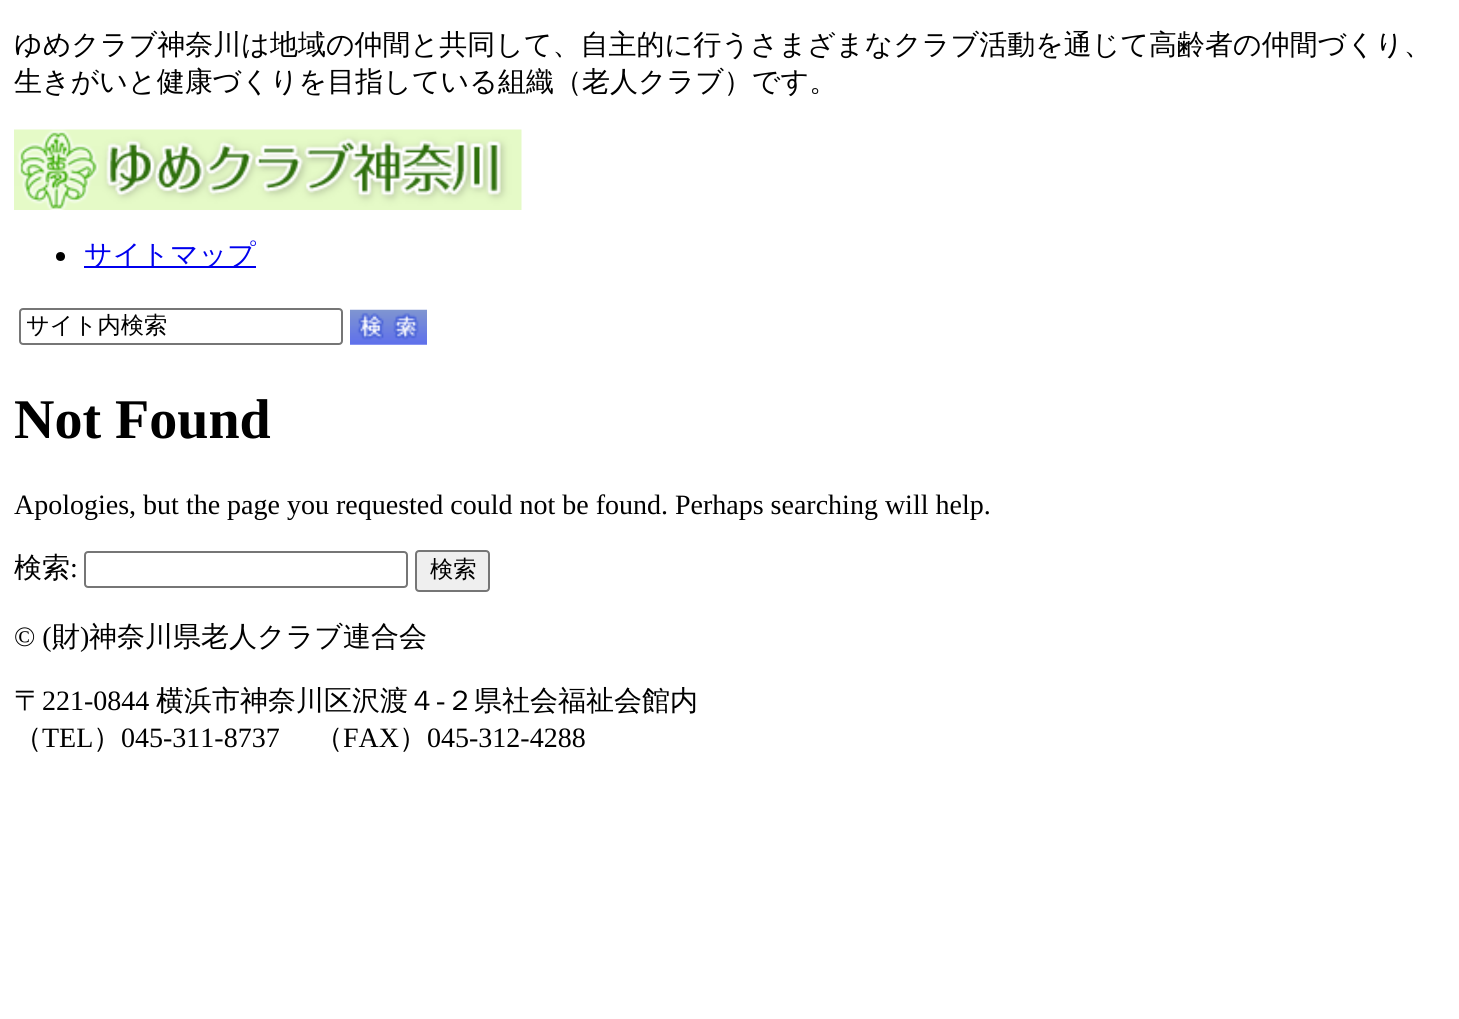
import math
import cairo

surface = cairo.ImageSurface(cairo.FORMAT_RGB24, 1459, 1019)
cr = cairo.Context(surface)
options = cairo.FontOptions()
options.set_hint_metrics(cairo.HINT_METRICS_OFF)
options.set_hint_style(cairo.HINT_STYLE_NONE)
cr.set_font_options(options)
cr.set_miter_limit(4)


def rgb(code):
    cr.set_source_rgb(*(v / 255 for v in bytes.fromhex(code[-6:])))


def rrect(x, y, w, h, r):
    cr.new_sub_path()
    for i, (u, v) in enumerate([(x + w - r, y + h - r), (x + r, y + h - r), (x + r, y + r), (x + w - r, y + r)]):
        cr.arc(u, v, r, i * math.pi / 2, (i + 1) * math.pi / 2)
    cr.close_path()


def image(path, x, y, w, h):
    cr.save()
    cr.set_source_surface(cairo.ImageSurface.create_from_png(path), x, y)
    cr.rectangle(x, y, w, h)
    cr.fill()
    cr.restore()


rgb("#ffffff")
cr.paint()
image("img/1.png", 14, 129, 508, 81)
rgb("#000000")
cr.arc(60.5, 256.5, 4.5, 0, 2 * math.pi)
cr.fill()
rgb("#0000ee")
cr.rectangle(84, 266, 172, 2)
cr.fill()
rrect(20, 309, 322, 35, 3)
rgb("#767676")
cr.stroke()
image("img/2.png", 350, 309, 77, 36)
rrect(85, 552, 322, 35, 3)
cr.stroke()
rgb("#efefef")
rrect(416, 551, 73, 40, 3)
cr.fill_preserve()
rgb("#767676")
cr.stroke()
cr.select_font_face("WenQuanYi Zen Hei Medium")
cr.set_font_size(28)
rgb("#000000")
cr.move_to(14, 54)
cr.show_text("ゆめクラブ神奈川は地域の仲間と共同して、自主的に行うさまざまなクラブ活動を通じて高齢者の仲間づくり、")
cr.move_to(14, 91)
cr.show_text("生きがいと健康づくりを目指している組織（老人クラブ）です。")
rgb("#0000ee")
cr.move_to(84, 264)
cr.show_text("サイトマップ")
cr.set_font_size(23.25)
rgb("#000000")
cr.move_to(26, 333)
cr.show_text("サイト内検索")
cr.select_font_face("Liberation Serif", cairo.FONT_SLANT_NORMAL, cairo.FONT_WEIGHT_BOLD)
cr.set_font_size(56)
cr.move_to(14, 438)
cr.show_text("Not Found")
cr.select_font_face("Liberation Serif")
cr.set_font_size(28)
cr.move_to(14, 514)
cr.show_text("Apologies, but the page you requested could not be found. Perhaps searching will help.")
cr.select_font_face("WenQuanYi Zen Hei Medium")
cr.move_to(14, 577)
cr.show_text("検索")
cr.select_font_face("Liberation Serif")
cr.move_to(70, 577)
cr.show_text(":")
cr.select_font_face("WenQuanYi Zen Hei Medium")
cr.set_font_size(23.25)
cr.move_to(430, 577)
cr.show_text("検索")
cr.select_font_face("Liberation Serif")
cr.set_font_size(28)
cr.move_to(14, 646)
cr.show_text("© (")
cr.select_font_face("WenQuanYi Zen Hei Medium")
cr.move_to(52, 646)
cr.show_text("財")
cr.select_font_face("Liberation Serif")
cr.move_to(80, 646)
cr.show_text(")")
cr.select_font_face("WenQuanYi Zen Hei Medium")
cr.move_to(89, 646)
cr.show_text("神奈川県老人クラブ連合会")
cr.move_to(14, 710)
cr.show_text("〒")
cr.select_font_face("Liberation Serif")
cr.move_to(42, 710)
cr.show_text("221-0844")
cr.select_font_face("WenQuanYi Zen Hei Medium")
cr.move_to(156, 710)
cr.show_text("横浜市神奈川区沢渡４")
cr.select_font_face("Liberation Serif")
cr.move_to(436, 710)
cr.show_text("-")
cr.select_font_face("WenQuanYi Zen Hei Medium")
cr.move_to(446, 710)
cr.show_text("２県社会福祉会館内")
cr.move_to(14, 747)
cr.show_text("（")
cr.select_font_face("Liberation Serif")
cr.move_to(42, 747)
cr.show_text("TEL")
cr.select_font_face("WenQuanYi Zen Hei Medium")
cr.move_to(93, 747)
cr.show_text("）")
cr.select_font_face("Liberation Serif")
cr.move_to(121, 747)
cr.show_text("045-311-8737")
cr.select_font_face("WenQuanYi Zen Hei Medium")
cr.move_to(315, 747)
cr.show_text("（")
cr.select_font_face("Liberation Serif")
cr.move_to(343, 747)
cr.show_text("FAX")
cr.select_font_face("WenQuanYi Zen Hei Medium")
cr.move_to(399, 747)
cr.show_text("）")
cr.select_font_face("Liberation Serif")
cr.move_to(427, 747)
cr.show_text("045-312-4288")
surface.write_to_png("page.png")
